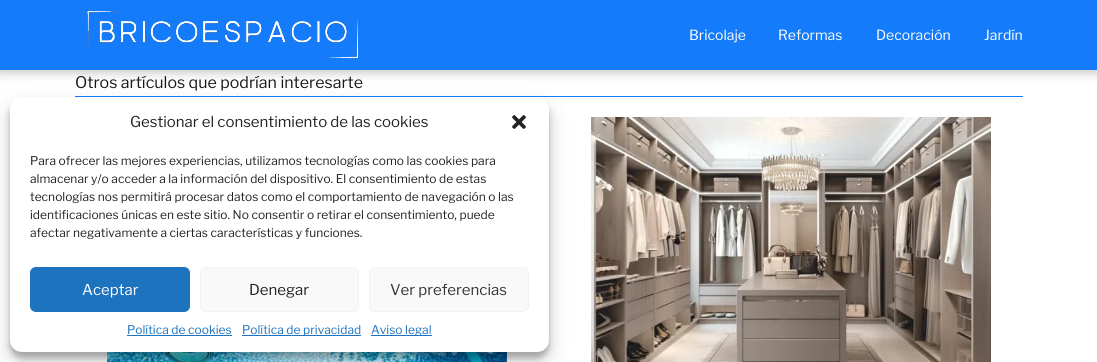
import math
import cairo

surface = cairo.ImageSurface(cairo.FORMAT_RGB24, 1097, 362)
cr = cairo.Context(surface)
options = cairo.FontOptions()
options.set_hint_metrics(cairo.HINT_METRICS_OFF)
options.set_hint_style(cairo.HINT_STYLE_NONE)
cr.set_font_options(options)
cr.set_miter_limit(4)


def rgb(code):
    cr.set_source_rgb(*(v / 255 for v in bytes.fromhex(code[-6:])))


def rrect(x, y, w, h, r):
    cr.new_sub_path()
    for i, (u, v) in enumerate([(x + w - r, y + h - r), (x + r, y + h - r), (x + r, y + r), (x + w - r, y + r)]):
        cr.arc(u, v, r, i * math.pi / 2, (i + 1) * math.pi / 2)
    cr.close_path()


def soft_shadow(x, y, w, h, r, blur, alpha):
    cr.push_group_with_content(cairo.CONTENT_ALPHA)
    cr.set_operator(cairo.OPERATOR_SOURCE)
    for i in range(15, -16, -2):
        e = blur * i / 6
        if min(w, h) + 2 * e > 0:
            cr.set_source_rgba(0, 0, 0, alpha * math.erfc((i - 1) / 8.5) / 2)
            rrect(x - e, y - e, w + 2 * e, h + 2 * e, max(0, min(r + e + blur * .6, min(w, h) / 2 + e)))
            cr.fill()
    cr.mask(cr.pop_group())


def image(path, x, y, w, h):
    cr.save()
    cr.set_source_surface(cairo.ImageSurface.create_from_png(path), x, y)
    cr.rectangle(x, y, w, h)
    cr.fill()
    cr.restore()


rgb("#ffffff")
cr.paint()
rgb("#000000")
soft_shadow(0, 1, 1097, 70, 0, 6, 0.3)
rgb("#147bfa")
cr.rectangle(0, 0, 1097, 70)
cr.fill()
image("img/1.png", 87, 10, 271, 49)
cr.rectangle(75, 96, 948, 1)
cr.fill()
image("img/2.png", 107, 352, 400, 10)
image("img/3.png", 591, 117, 400, 245)
rgb("#000000")
soft_shadow(10, 103, 539, 255, 12, 3, 0.23)
soft_shadow(10, 107, 539, 255, 12, 10, 0.19)
rgb("#ffffff")
rrect(10, 97, 539, 255, 12)
cr.fill()
image("img/4.png", 512, 115, 14, 14)
rgb("#1e73be")
rrect(30.5, 267.5, 159, 44, 5.5)
cr.fill_preserve()
cr.set_line_width(1)
cr.stroke()
rgb("#f9f9f9")
rrect(200.5, 267.5, 158, 44, 5.5)
cr.fill_preserve()
rgb("#f2f2f2")
cr.stroke()
rgb("#f9f9f9")
rrect(369.5, 267.5, 159, 44, 5.5)
cr.fill_preserve()
rgb("#f2f2f2")
cr.stroke()
for x, y, w, h, color in [
    (127, 335, 105, 1, "#1e73be"),
    (242, 335, 119, 1, "#1e73be"),
    (371, 335, 61, 1, "#1e73be"),
]:
    rgb(color)
    cr.rectangle(x, y, w, h)
    cr.fill()
cr.select_font_face("Libre Franklin Thin")
cr.set_font_size(14)
rgb("#ffffff")
for x, y, s in [
    (689, 40, "Bricolaje"),
    (778, 40, "Reformas"),
    (876, 40, "Decoración"),
    (984, 40, "Jardín"),
]:
    cr.move_to(x, y)
    cr.show_text(s)
cr.set_font_size(16)
rgb("#181818")
cr.move_to(75, 88)
cr.show_text("Otros artículos que podrían interesarte")
cr.set_font_size(15)
rgb("#222222")
cr.move_to(130, 127)
cr.show_text("Gestionar el consentimiento de las cookies")
cr.set_font_size(12)
for x, y, s in [
    (30, 165, "Para ofrecer las mejores experiencias, utilizamos tecnologías como las cookies para"),
    (30, 183, "almacenar y/o acceder a la información del dispositivo. El consentimiento de estas"),
    (30, 201, "tecnologías nos permitirá procesar datos como el comportamiento de navegación o las"),
    (30, 219, "identificaciones únicas en este sitio. No consentir o retirar el consentimiento, puede"),
    (30, 237, "afectar negativamente a ciertas características y funciones."),
]:
    cr.move_to(x, y)
    cr.show_text(s)
cr.set_font_size(15)
rgb("#ffffff")
cr.move_to(82, 295)
cr.show_text("Aceptar")
rgb("#222222")
cr.move_to(249, 295)
cr.show_text("Denegar")
rgb("#333333")
cr.move_to(390, 295)
cr.show_text("Ver preferencias")
cr.set_font_size(12)
rgb("#1e73be")
for x, y, s in [
    (127, 334, "Política de cookies"),
    (242, 334, "Política de privacidad"),
    (371, 334, "Aviso legal"),
]:
    cr.move_to(x, y)
    cr.show_text(s)
surface.write_to_png("page.png")
